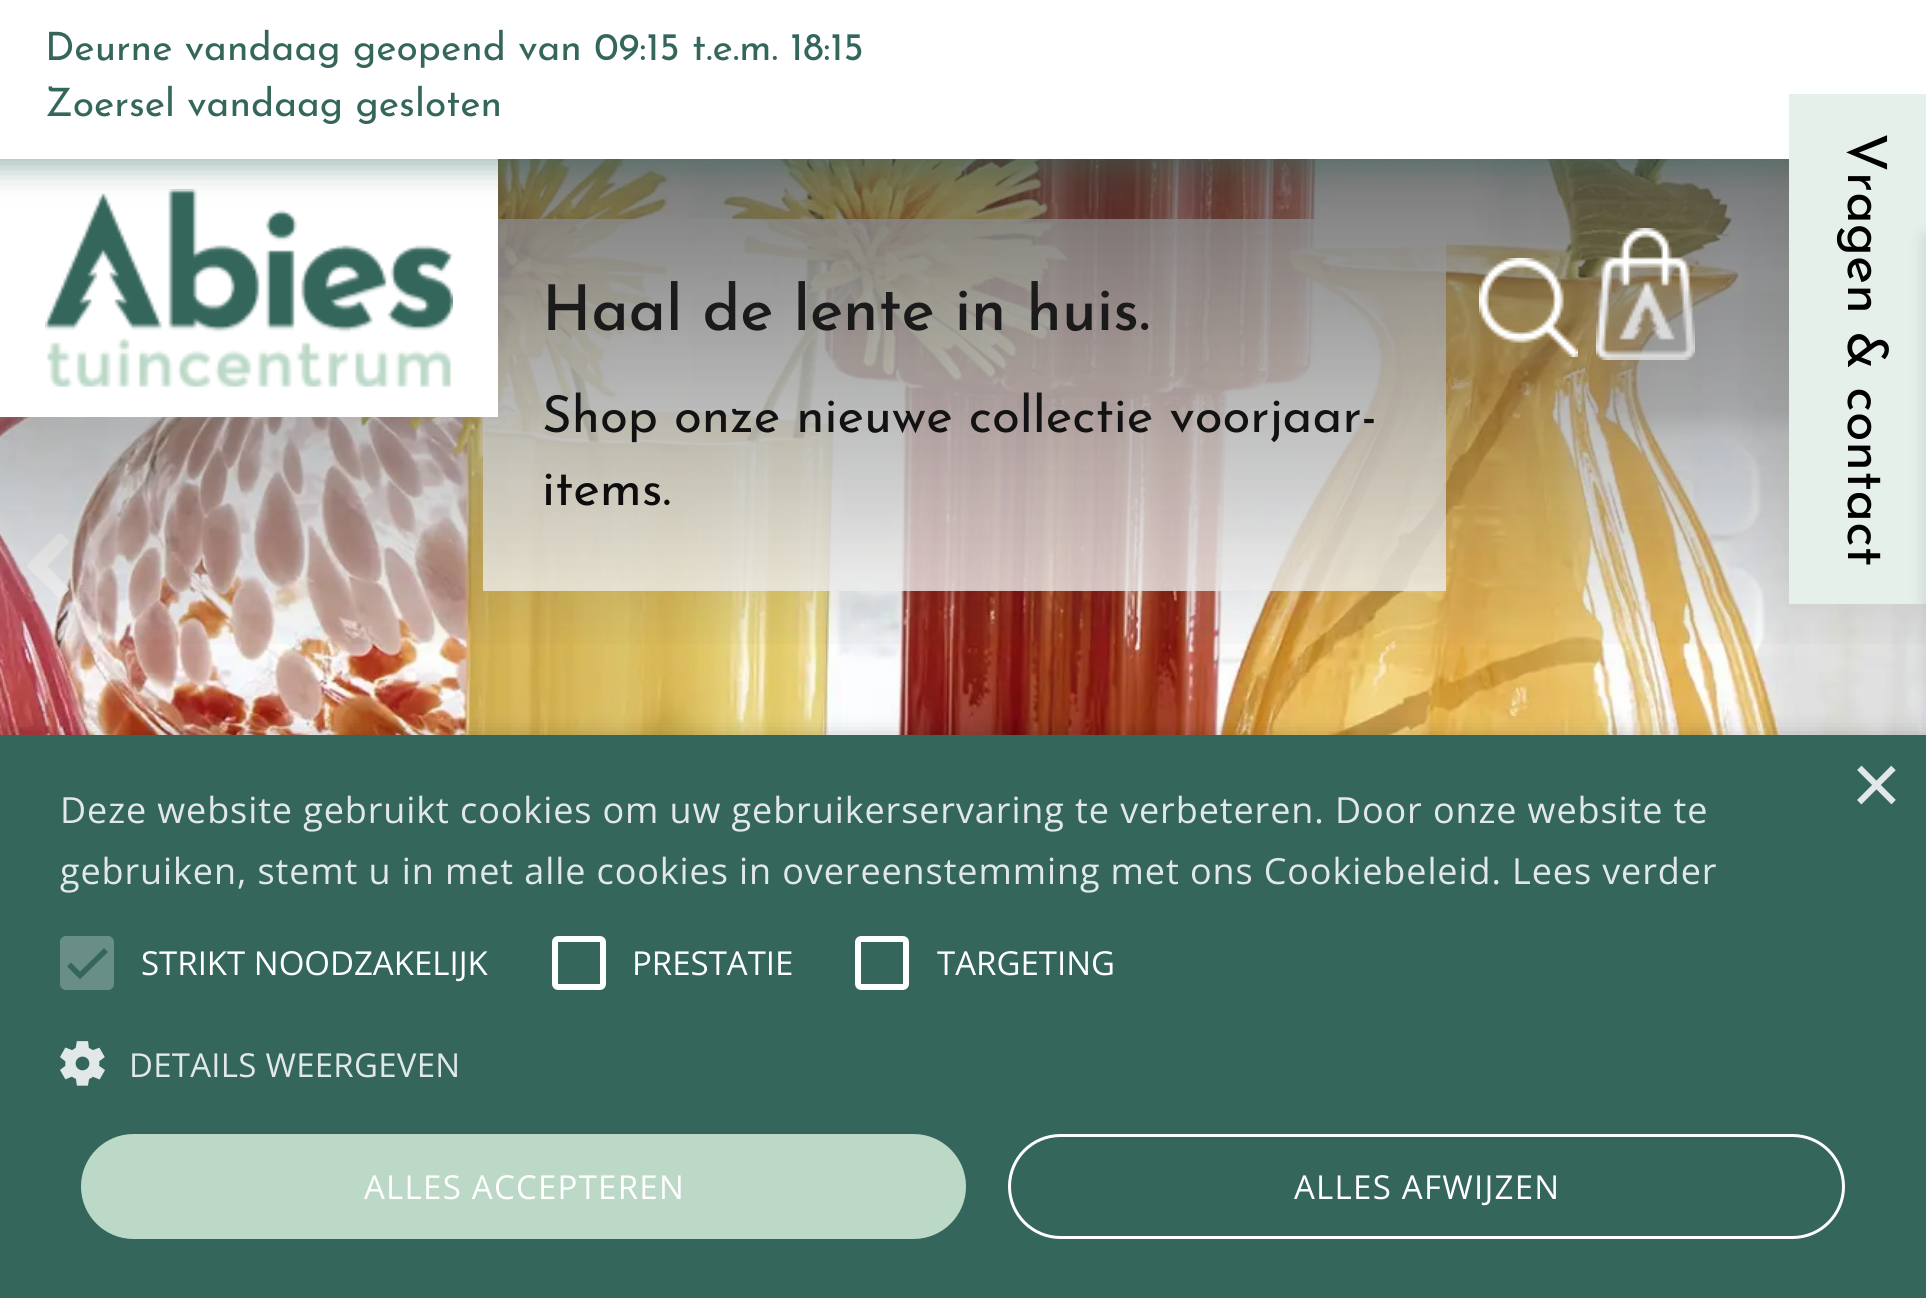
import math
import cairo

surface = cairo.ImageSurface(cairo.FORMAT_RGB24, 1926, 1298)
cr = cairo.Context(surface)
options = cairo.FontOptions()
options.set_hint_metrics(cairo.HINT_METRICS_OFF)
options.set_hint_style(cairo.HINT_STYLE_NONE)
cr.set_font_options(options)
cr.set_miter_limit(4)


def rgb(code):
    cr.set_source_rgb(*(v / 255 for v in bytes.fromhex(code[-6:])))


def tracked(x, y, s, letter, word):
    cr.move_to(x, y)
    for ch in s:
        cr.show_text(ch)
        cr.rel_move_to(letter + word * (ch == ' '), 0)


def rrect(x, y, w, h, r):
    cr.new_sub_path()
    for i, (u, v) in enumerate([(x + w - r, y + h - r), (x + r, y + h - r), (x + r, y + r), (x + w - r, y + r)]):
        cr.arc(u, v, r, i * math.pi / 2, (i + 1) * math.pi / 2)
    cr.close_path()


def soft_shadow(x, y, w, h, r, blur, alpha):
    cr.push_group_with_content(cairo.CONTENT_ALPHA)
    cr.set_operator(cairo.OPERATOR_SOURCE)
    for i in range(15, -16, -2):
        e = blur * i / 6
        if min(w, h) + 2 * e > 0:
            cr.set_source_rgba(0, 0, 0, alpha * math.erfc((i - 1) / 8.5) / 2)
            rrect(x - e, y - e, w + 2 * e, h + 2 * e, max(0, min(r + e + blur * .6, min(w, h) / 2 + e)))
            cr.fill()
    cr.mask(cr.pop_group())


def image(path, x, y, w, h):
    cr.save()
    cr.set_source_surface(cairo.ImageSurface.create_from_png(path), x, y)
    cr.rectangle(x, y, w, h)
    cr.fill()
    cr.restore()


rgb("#ffffff")
cr.paint()
image("img/4.png", 0, 159, 1926, 576)
cr.set_source_rgba(1, 1, 1, 0.8)
cr.rectangle(483, 219, 963, 372)
cr.fill()
cr.new_path()
cr.move_to(68, 544)
cr.line_to(47, 566)
cr.line_to(64, 583)
cr.curve_to(71, 590, 70, 589, 64, 595)
cr.curve_to(58, 600, 58, 598, 53, 592)
cr.line_to(27, 567)
cr.line_to(27, 565)
cr.line_to(58, 534)
cr.curve_to(60, 532, 62, 535, 64, 536)
cr.line_to(69, 541)
cr.curve_to(69, 542, 69, 544, 68, 544)
cr.close_path()
cr.fill()
rgb("#000000")
soft_shadow(3, 741, 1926, 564, 0, 12, 0.35)
cr.select_font_face("Josefin Sans Medium")
cr.set_font_size(63)
rgb("#000000")
cr.move_to(542, 330)
cr.show_text("Haal de lente in huis.")
cr.select_font_face("Josefin Sans")
cr.set_font_size(51)
cr.move_to(542, 432)
cr.show_text("Shop onze nieuwe collectie voorjaar-")
cr.move_to(542, 505)
cr.show_text("items.")
gradient = cairo.LinearGradient(963, 0, 963, 660)
gradient.add_color_stop_rgba(0, 0.22, 0.22, 0.22, 0.9)
gradient.add_color_stop_rgba(1, 0.22, 0.22, 0.22, 0)
cr.set_source(gradient)
cr.rectangle(0, 159, 1926, 485)
cr.fill()
image("img/3.png", 1596, 228, 99, 132)
image("img/2.png", 1479, 258, 99, 99)
rgb("#ffffff")
cr.rectangle(0, 159, 498, 258)
cr.fill()
image("img/1.png", 45, 189, 408, 198)
rgb("#34665c")
soft_shadow(-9, -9, 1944, 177, 0, 15, 0.45)
rgb("#ffffff")
cr.rectangle(0, 0, 1926, 159)
cr.fill()
cr.set_font_size(39)
rgb("#34665c")
cr.move_to(45, 116)
cr.show_text("Zoersel vandaag gesloten")
cr.move_to(45, 60)
cr.show_text("Deurne vandaag geopend van 09:15 t.e.m. 18:15")
rgb("#838383")
soft_shadow(1602, 288, 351, 135, 0, 9, 0.3)
rgb("#e4f0e9")
cr.rectangle(1789, 94, 137, 510)
cr.fill()
cr.set_font_size(54)
rgb("#000000")
cr.save()
cr.translate(1848, 133)
cr.rotate(90 * math.pi / 180)
cr.move_to(0, 0)
cr.show_text("Vragen & contact")
cr.restore()
rgb("#838383")
soft_shadow(1926, 237, 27, 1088, 0, 9, 0.3)
rgb("#34665c")
cr.rectangle(0, 735, 1926, 563)
cr.fill()
cr.select_font_face("Liberation Sans")
cr.set_font_size(87)
rgb("#e1e8e7")
cr.move_to(1851, 814)
cr.show_text("×")
cr.select_font_face("Open Sans")
cr.set_font_size(36)
tracked(60, 823, "Deze website gebruikt cookies om uw gebruikerservaring te verbeteren. Door onze website te", 0.9, 0)
tracked(60, 884, "gebruiken, stemt u in met alle cookies in overeenstemming met ons Cookiebeleid. Lees verder", 0.9, 0)
rgb("#698e86")
rrect(60, 936, 54, 54, 6)
cr.fill()
cr.new_path()
cr.move_to(69, 964.5)
cr.line_to(80, 975.5)
cr.line_to(106, 950)
rgb("#34665c")
cr.set_line_width(5.5)
cr.stroke()
cr.set_font_size(33)
rgb("#ffffff")
cr.move_to(141, 975)
cr.show_text("STRIKT NOODZAKELIJK")
rrect(555, 939, 48, 48, 3)
cr.set_line_width(6)
cr.stroke()
cr.move_to(632, 975)
cr.show_text("PRESTATIE")
rrect(858, 939, 48, 48, 3)
cr.stroke()
cr.move_to(937, 975)
cr.show_text("TARGETING")
image("img/5.png", 60, 1041, 45, 45)
rgb("#e1e8e7")
tracked(129, 1077, "DETAILS WEERGEVEN", 0.25, 0)
rgb("#bcd9c8")
rrect(81, 1134, 885, 105, 52.5)
cr.fill()
rgb("#ffffff")
tracked(364, 1199, "ALLES ACCEPTEREN", 1.25, 0)
rrect(1009.5, 1135.5, 834, 102, 51)
cr.set_line_width(3)
cr.stroke()
tracked(1294, 1199, "ALLES AFWIJZEN", 1.25, 0)
surface.write_to_png("page.png")
